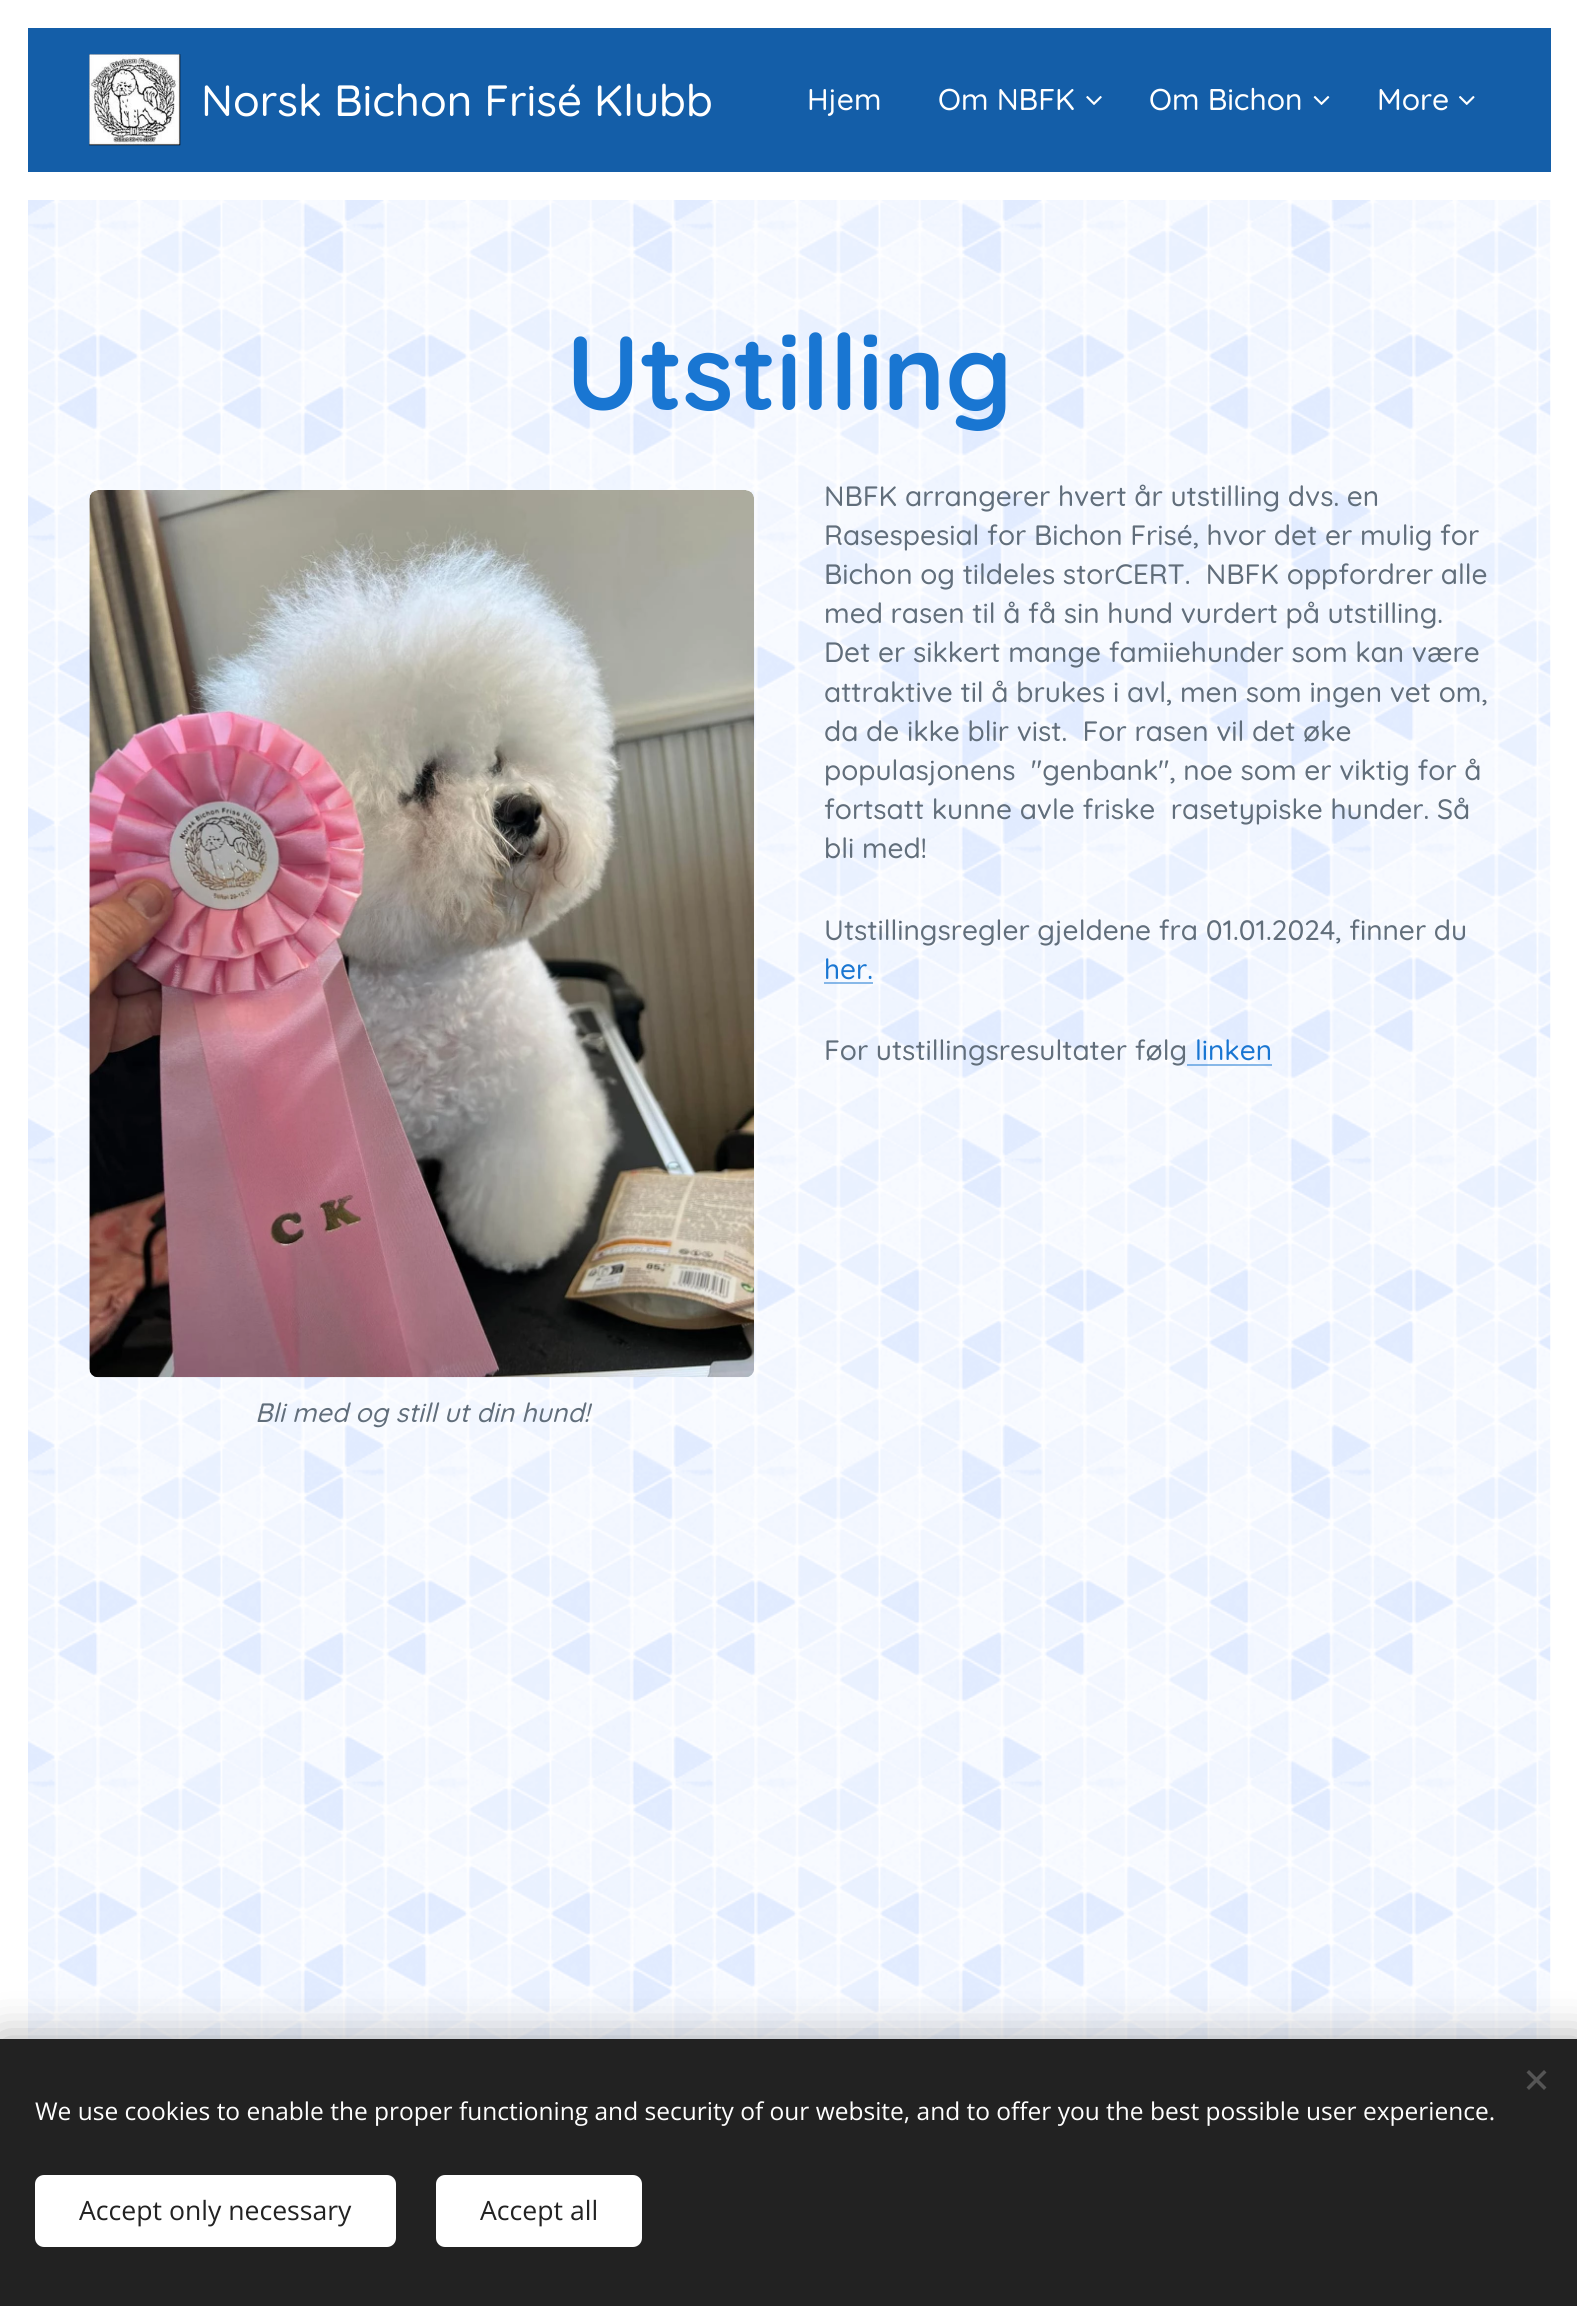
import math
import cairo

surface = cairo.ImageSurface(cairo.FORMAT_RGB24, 1577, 2306)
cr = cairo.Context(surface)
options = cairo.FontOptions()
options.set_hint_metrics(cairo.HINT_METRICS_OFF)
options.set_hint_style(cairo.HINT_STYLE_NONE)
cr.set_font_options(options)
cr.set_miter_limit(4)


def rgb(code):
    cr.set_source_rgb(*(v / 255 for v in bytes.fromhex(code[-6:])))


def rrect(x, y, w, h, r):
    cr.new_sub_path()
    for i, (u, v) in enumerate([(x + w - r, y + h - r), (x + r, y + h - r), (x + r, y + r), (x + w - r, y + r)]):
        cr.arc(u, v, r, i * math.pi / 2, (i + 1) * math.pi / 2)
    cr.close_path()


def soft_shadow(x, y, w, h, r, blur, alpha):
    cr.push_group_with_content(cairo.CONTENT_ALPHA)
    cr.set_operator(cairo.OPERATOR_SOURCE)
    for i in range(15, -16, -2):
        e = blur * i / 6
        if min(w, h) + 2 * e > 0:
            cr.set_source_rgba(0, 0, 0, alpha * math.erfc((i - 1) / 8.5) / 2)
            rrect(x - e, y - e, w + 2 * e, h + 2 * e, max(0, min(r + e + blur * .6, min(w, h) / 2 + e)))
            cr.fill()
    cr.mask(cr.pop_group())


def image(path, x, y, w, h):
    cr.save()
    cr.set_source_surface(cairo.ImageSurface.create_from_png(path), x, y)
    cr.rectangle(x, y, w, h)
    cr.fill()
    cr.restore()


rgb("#ffffff")
cr.paint()
rgb("#145ea8")
cr.rectangle(28, 28, 1523, 144)
cr.fill()
image("img/1.png", 89, 54, 92, 92)
image("img/2.png", 1086, 96, 16, 9)
image("img/3.png", 1313, 96, 17, 9)
image("img/4.png", 1459, 96, 16, 9)
image("img/5.png", 28, 200, 1523, 1839)
cr.set_source_rgba(0.098, 0.463, 0.824, 0.5)
cr.rectangle(824, 982, 49, 2)
cr.fill()
cr.rectangle(1187, 1064, 85, 2)
cr.fill()
image("img/6.png", 89, 490, 665, 888)
rgb("#000000")
soft_shadow(0, 2039, 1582, 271, 0, 22, 0.33)
rgb("#222222")
cr.rectangle(0, 2039, 1577, 267)
cr.fill()
rgb("#555555")
cr.new_path()
cr.move_to(1526.5, 2087.5)
cr.line_to(1544, 2070)
cr.line_to(1546.5, 2072.5)
cr.line_to(1529, 2090)
cr.close_path()
cr.fill()
cr.new_path()
cr.move_to(1529, 2070)
cr.line_to(1546.5, 2087.5)
cr.line_to(1544, 2090)
cr.line_to(1526.5, 2072.5)
cr.close_path()
cr.fill()
rgb("#ffffff")
rrect(35, 2175, 361, 72, 9)
cr.fill()
rrect(436, 2175, 206, 72, 9)
cr.fill()
cr.select_font_face("Quicksand Medium")
cr.set_font_size(43.75)
cr.move_to(201, 116)
cr.show_text("Norsk Bichon Frisé Klubb")
cr.set_font_size(30)
for x, y, s in [
    (807, 110, "Hjem"),
    (938, 110, "Om NBFK"),
    (1149, 110, "Om Bichon"),
    (1377, 110, "More"),
]:
    cr.move_to(x, y)
    cr.show_text(s)
cr.select_font_face("Quicksand", cairo.FONT_SLANT_NORMAL, cairo.FONT_WEIGHT_BOLD)
cr.set_font_size(105)
rgb("#1976d2")
cr.move_to(566, 410)
cr.show_text("Utstilling")
cr.select_font_face("Quicksand Medium")
cr.set_font_size(28)
rgb("#616e7b")
for x, y, s in [
    (824, 506, "NBFK arrangerer hvert år utstilling dvs. en"),
    (824, 545, "Rasespesial for Bichon Frisé, hvor det er mulig for"),
    (824, 584, "Bichon og tildeles storCERT.  NBFK oppfordrer alle"),
    (824, 623, "med rasen til å få sin hund vurdert på utstilling."),
    (824, 662, "Det er sikkert mange famiiehunder som kan være"),
    (824, 702, "attraktive til å brukes i avl, men som ingen vet om,"),
    (824, 741, "da de ikke blir vist.  For rasen vil det øke"),
    (824, 780, "populasjonens  \"genbank\", noe som er viktig for å"),
    (824, 819, "fortsatt kunne avle friske  rasetypiske hunder. Så"),
    (824, 858, "bli med!"),
    (824, 940, "Utstillingsregler gjeldene fra 01.01.2024, finner du"),
]:
    cr.move_to(x, y)
    cr.show_text(s)
rgb("#1976d2")
cr.move_to(824, 979)
cr.show_text("her.")
rgb("#616e7b")
cr.move_to(824, 1060)
cr.show_text("For utstillingsresultater følg")
rgb("#1976d2")
cr.move_to(1195, 1060)
cr.show_text("linken")
cr.select_font_face("Quicksand Medium", cairo.FONT_SLANT_ITALIC)
cr.set_font_size(26.6)
rgb("#616e7b")
cr.move_to(255, 1422)
cr.show_text("Bli med og still ut din hund!")
cr.select_font_face("Open Sans")
cr.set_font_size(24.5)
rgb("#ffffff")
cr.move_to(35, 2120)
cr.show_text("We use cookies to enable the proper functioning and security of our website, and to offer you the best possible user experience.")
cr.set_font_size(26.6)
rgb("#222222")
cr.move_to(79, 2220)
cr.show_text("Accept only necessary")
cr.move_to(480, 2220)
cr.show_text("Accept all")
surface.write_to_png("page.png")
